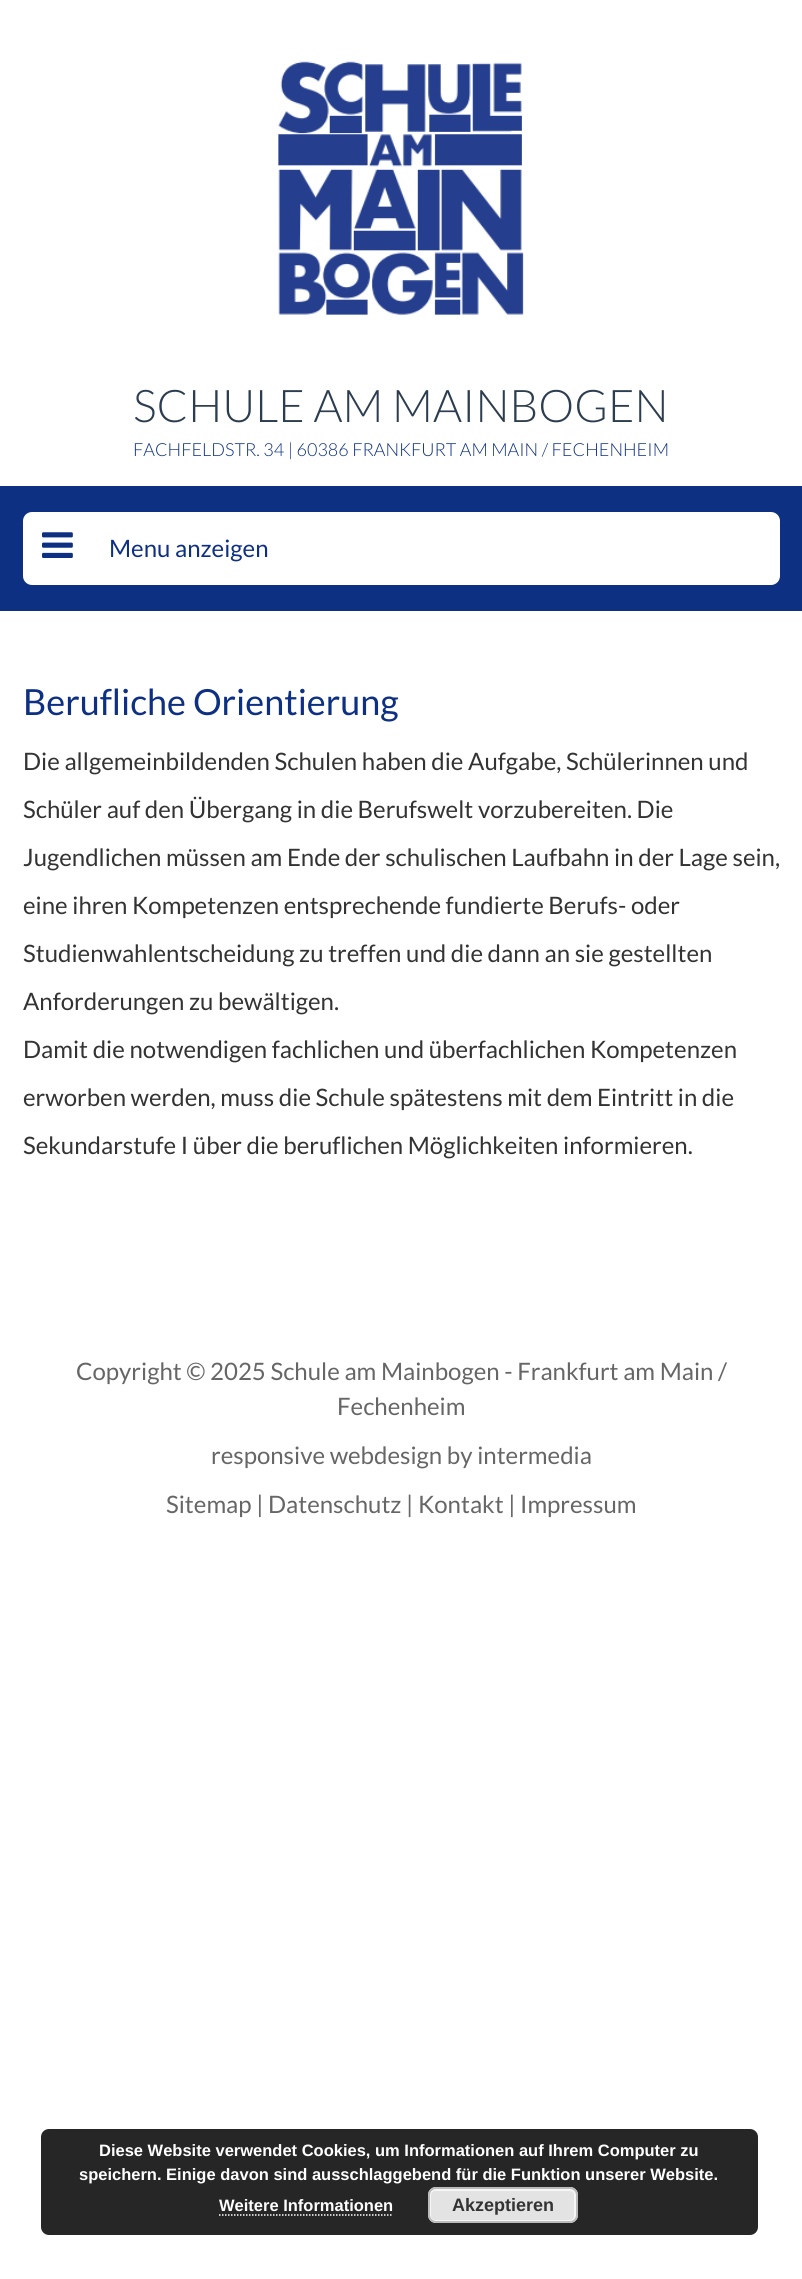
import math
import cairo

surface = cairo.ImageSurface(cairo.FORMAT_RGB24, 802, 2279)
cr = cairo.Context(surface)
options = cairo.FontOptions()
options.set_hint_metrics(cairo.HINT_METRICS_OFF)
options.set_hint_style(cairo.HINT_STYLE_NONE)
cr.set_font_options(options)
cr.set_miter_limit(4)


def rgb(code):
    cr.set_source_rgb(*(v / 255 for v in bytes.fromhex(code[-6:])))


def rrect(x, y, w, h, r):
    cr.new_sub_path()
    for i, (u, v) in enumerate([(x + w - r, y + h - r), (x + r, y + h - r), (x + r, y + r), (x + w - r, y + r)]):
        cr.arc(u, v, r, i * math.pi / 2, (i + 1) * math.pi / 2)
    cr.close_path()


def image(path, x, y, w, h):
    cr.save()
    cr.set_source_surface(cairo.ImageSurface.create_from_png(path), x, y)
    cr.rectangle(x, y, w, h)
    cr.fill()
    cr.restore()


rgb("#ffffff")
cr.paint()
image("img/1.png", 278, 61, 246, 254)
rgb("#0e3083")
cr.rectangle(0, 486, 802, 125)
cr.fill()
rgb("#ffffff")
rrect(24, 513, 755, 71, 8)
cr.fill_preserve()
cr.stroke()
image("img/2.png", 42, 532, 31, 26)
rgb("#262626")
rrect(41, 2129, 717, 106, 8)
cr.fill()
cr.new_path()
cr.move_to(219, 2215)
cr.line_to(393, 2215)
rgb("#ffffff")
cr.set_line_width(1.5)
cr.set_dash([1.5, 1.5])
cr.stroke()
rgb("#e3e3e3")
rrect(428, 2187, 150, 36, 8)
cr.fill()
rrect(430, 2190, 145, 31, 5)
rgb("#f6f6f6")
cr.set_line_width(2)
cr.set_dash([])
cr.stroke()
rrect(429, 2188, 148, 34, 7)
rgb("#bbbbbb")
cr.stroke()
cr.select_font_face("Lato Light")
cr.set_font_size(45)
rgb("#2c3d4f")
cr.move_to(133, 422)
cr.show_text("SCHULE AM MAINBOGEN")
cr.set_font_size(18)
rgb("#0e3083")
cr.move_to(133, 456)
cr.show_text("FACHFELDSTR. 34 | 60386 FRANKFURT AM MAIN / FECHENHEIM")
cr.select_font_face("Lato")
cr.set_font_size(24)
cr.move_to(109, 557)
cr.show_text("Menu anzeigen")
cr.set_font_size(36)
cr.move_to(23, 715)
cr.show_text("Berufliche Orientierung")
cr.set_font_size(24)
rgb("#333333")
for x, y, s in [
    (23, 770, "Die allgemeinbildenden Schulen haben die Aufgabe, Schülerinnen und"),
    (23, 818, "Schüler auf den Übergang in die Berufswelt vorzubereiten. Die"),
    (23, 866, "Jugendlichen müssen am Ende der schulischen Laufbahn in der Lage sein,"),
    (23, 914, "eine ihren Kompetenzen entsprechende fundierte Berufs- oder"),
    (23, 962, "Studienwahlentscheidung zu treffen und die dann an sie gestellten"),
    (23, 1010, "Anforderungen zu bewältigen."),
    (23, 1058, "Damit die notwendigen fachlichen und überfachlichen Kompetenzen"),
    (23, 1106, "erworben werden, muss die Schule spätestens mit dem Eintritt in die"),
    (23, 1154, "Sekundarstufe I über die beruflichen Möglichkeiten informieren."),
]:
    cr.move_to(x, y)
    cr.show_text(s)
rgb("#666666")
for x, y, s in [
    (76, 1380, "Copyright © 2025 Schule am Mainbogen - Frankfurt am Main /"),
    (337, 1415, "Fechenheim"),
    (211, 1464, "responsive webdesign by intermedia"),
    (166, 1513, "Sitemap | Datenschutz | Kontakt | Impressum"),
]:
    cr.move_to(x, y)
    cr.show_text(s)
cr.select_font_face("Liberation Sans", cairo.FONT_SLANT_NORMAL, cairo.FONT_WEIGHT_BOLD)
cr.set_font_size(16.5)
rgb("#ffffff")
for x, y, s in [
    (99, 2156, "Diese Website verwendet Cookies, um Informationen auf Ihrem Computer zu"),
    (79, 2180, "speichern. Einige davon sind ausschlaggebend für die Funktion unserer Website."),
    (219, 2211, "Weitere Informationen"),
]:
    cr.move_to(x, y)
    cr.show_text(s)
cr.set_font_size(18)
rgb("#333333")
cr.move_to(452, 2211)
cr.show_text("Akzeptieren")
surface.write_to_png("page.png")
